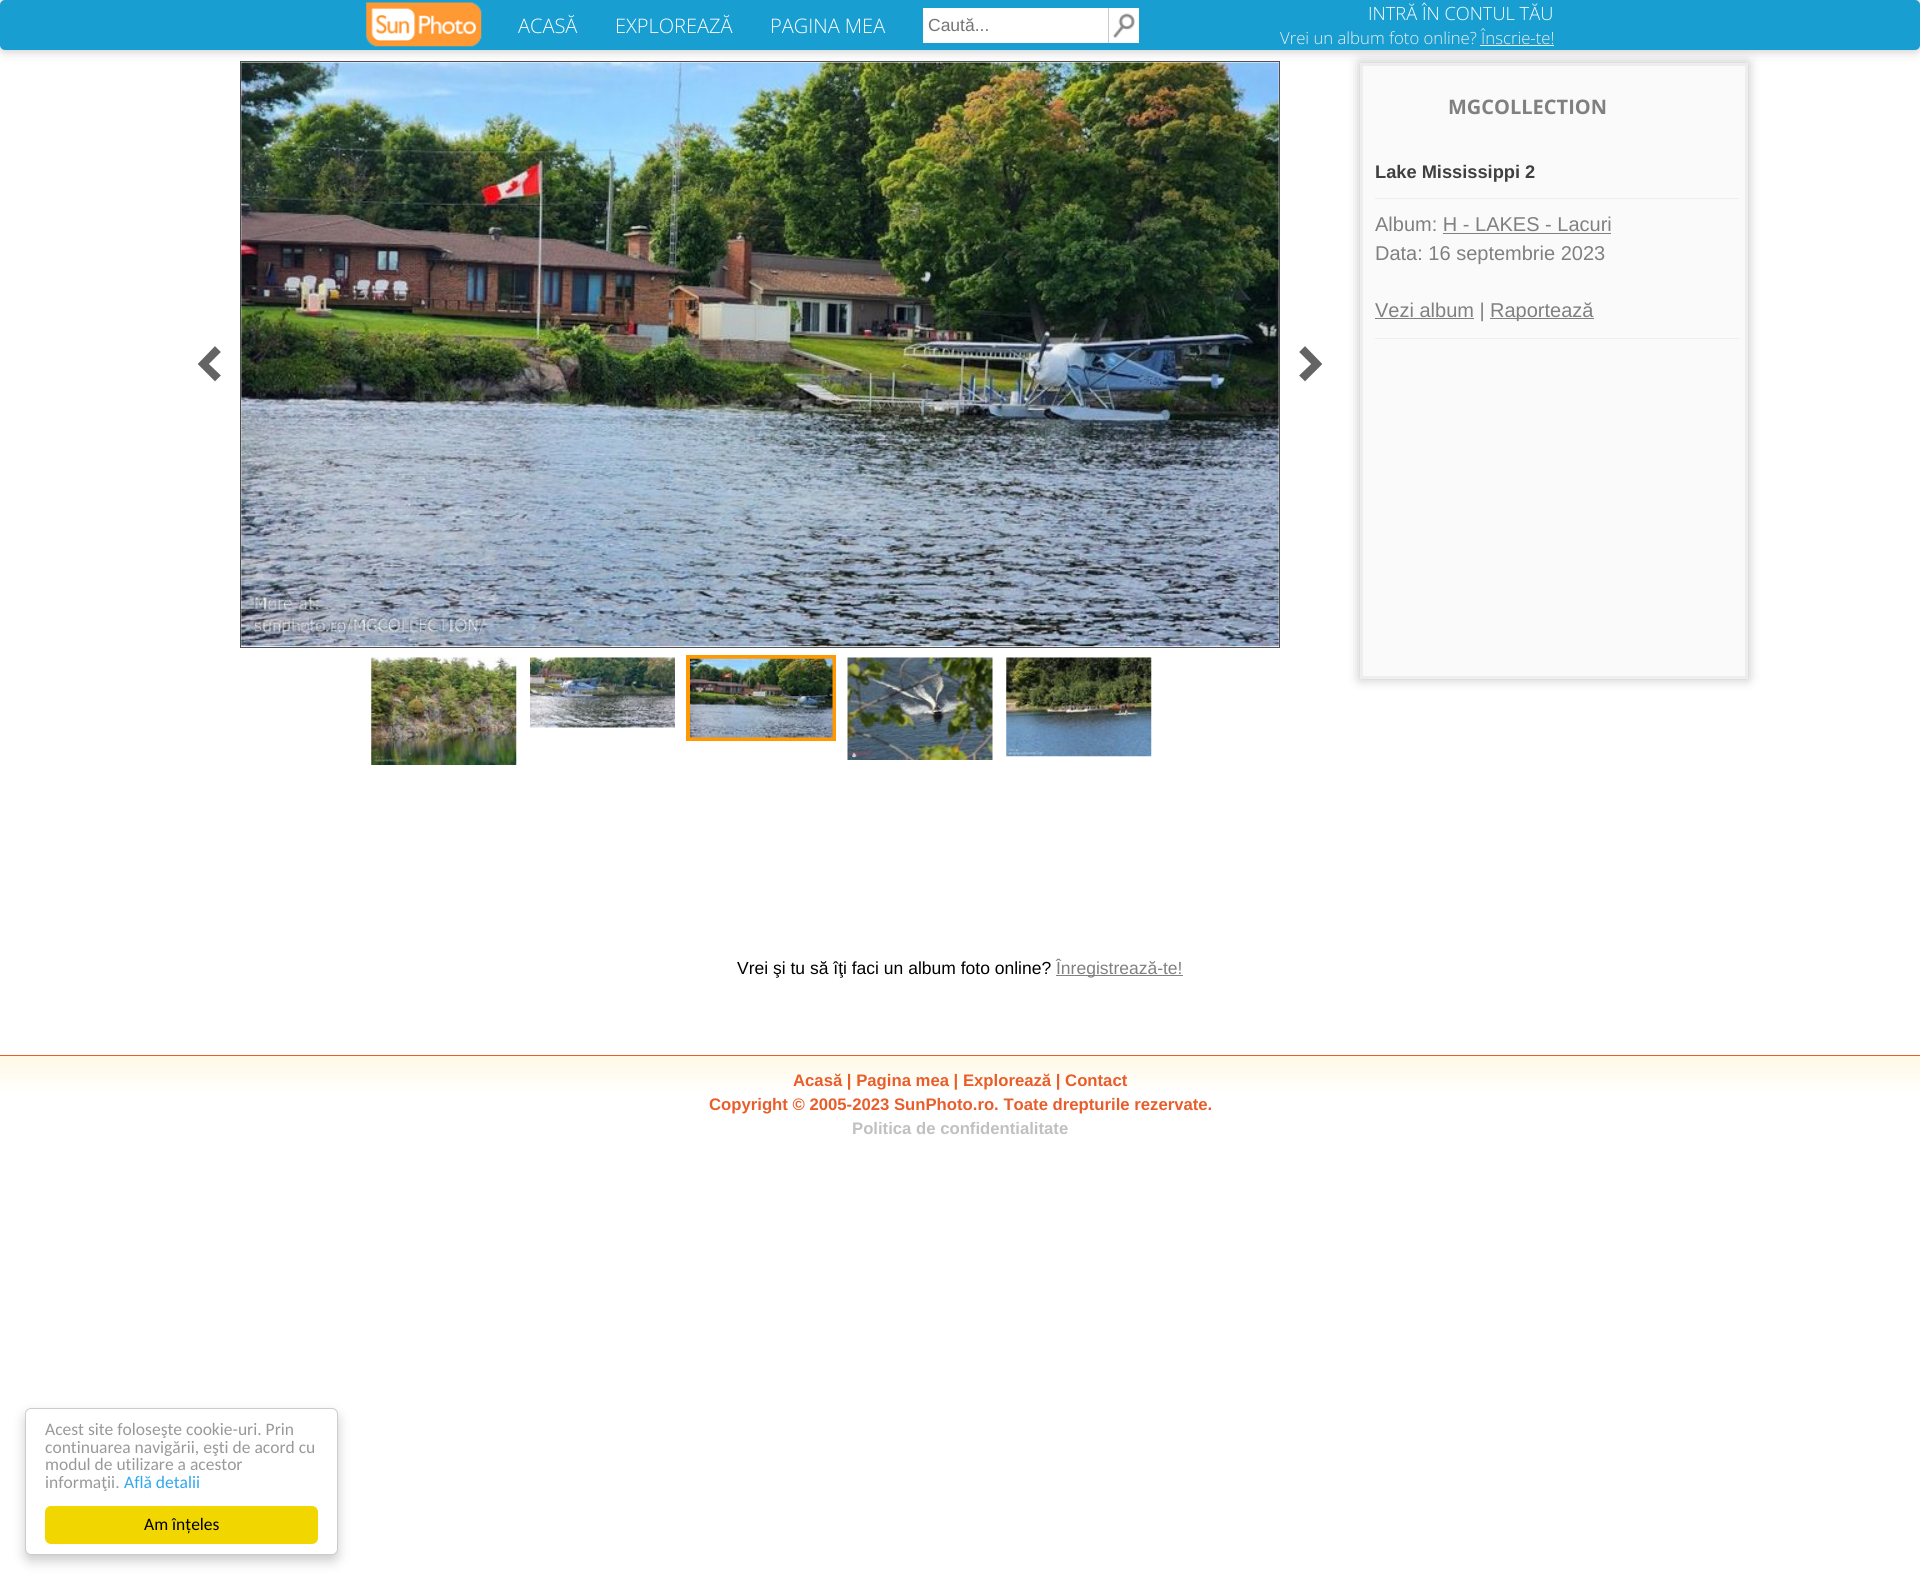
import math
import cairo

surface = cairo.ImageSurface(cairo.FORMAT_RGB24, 1920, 1580)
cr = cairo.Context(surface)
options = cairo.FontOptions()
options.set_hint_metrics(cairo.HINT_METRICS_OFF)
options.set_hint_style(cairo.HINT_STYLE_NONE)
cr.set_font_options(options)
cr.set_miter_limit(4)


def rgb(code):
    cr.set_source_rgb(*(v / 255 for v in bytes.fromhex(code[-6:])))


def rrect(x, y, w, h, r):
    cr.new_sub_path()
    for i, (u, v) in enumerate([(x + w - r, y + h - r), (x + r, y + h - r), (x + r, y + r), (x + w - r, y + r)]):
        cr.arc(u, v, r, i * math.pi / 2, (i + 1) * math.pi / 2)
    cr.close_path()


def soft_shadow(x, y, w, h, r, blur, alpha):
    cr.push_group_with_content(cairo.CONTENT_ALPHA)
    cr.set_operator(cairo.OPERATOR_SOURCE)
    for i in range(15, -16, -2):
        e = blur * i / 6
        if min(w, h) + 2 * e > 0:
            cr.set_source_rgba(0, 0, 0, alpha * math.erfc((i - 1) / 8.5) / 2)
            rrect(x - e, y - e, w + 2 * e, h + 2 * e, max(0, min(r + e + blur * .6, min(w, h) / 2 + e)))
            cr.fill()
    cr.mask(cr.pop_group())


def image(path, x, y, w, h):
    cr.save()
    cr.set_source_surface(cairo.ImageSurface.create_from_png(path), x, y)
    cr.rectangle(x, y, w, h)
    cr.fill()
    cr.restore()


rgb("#ffffff")
cr.paint()
cr.rectangle(240.5, 61.5, 1039, 586)
rgb("#505050")
cr.set_line_width(1)
cr.stroke()
image("img/3.png", 241, 62, 1038, 585)
rgb("#000000")
soft_shadow(1360, 63, 388, 616, 0, 6, 0.25)
rgb("#fafafa")
cr.rectangle(1361.5, 64.5, 385, 613)
cr.fill_preserve()
rgb("#eeeeee")
cr.set_line_width(3)
cr.stroke()
rgb("#000000")
soft_shadow(0, 0, 1920, 50, 5, 6, 0.25)
rgb("#199ed2")
rrect(0, 0, 1920, 50, 5)
cr.fill()
image("img/1.png", 366, 2, 116, 45)
for x, y, w, h, color in [
    (923, 8, 185, 35, "#ffffff"),
    (1109, 8, 30, 35, "#ffffff"),
    (1108, 8, 1, 35, "#cccccc"),
]:
    rgb(color)
    cr.rectangle(x, y, w, h)
    cr.fill()
image("img/2.png", 1112, 13, 23, 25)
rgb("#eeeeee")
cr.rectangle(1480, 45, 74, 1)
cr.fill()
rgb("#646464")
cr.new_path()
cr.move_to(219, 352)
cr.line_to(215, 348)
cr.line_to(199.5, 364)
cr.line_to(215, 379.5)
cr.line_to(219, 375.5)
cr.line_to(207, 364)
cr.close_path()
cr.fill_preserve()
cr.set_line_width(2.6)
cr.stroke()
cr.new_path()
cr.move_to(1305, 348)
cr.line_to(1301, 352)
cr.line_to(1313, 364)
cr.line_to(1301, 375.5)
cr.line_to(1305, 379.5)
cr.line_to(1320.5, 364)
cr.close_path()
cr.fill_preserve()
cr.stroke()
for x, y, w, h, color in [
    (1375, 198, 364, 1, "#eeeeee"),
    (1443, 233, 168, 1, "#808080"),
    (1375, 318, 99, 1, "#808080"),
    (1490, 318, 104, 1, "#808080"),
    (1375, 338, 364, 1, "#eeeeee"),
]:
    rgb(color)
    cr.rectangle(x, y, w, h)
    cr.fill()
image("img/4.png", 371, 657, 146, 108)
image("img/5.png", 530, 657, 145, 71)
cr.rectangle(688, 657, 146, 82)
rgb("#fe9901")
cr.set_line_width(4)
cr.stroke()
image("img/6.png", 690, 658, 143, 80)
image("img/7.png", 847, 657, 146, 103)
image("img/8.png", 1006, 657, 146, 100)
rgb("#808080")
cr.rectangle(1056, 975, 127, 1)
cr.fill()
gradient = cairo.LinearGradient(960, 1056, 960, 1095)
gradient.add_color_stop_rgba(0, 1, 0.976, 0.898, 1)
gradient.add_color_stop_rgba(1, 1, 1, 1, 1)
cr.set_source(gradient)
cr.rectangle(0, 1056, 1920, 35)
cr.fill()
rgb("#e95d2a")
cr.rectangle(0, 1055, 1920, 1)
cr.fill()
rgb("#000000")
soft_shadow(25, 1414, 313, 147, 6, 6, 0.2)
rgb("#ffffff")
rrect(25.5, 1408.5, 312, 146, 5.5)
cr.fill_preserve()
rgb("#cccccc")
cr.set_line_width(1)
cr.stroke()
rgb("#f1d600")
rrect(45, 1506, 273, 38, 6)
cr.fill()
cr.select_font_face("Open Sans Light")
cr.set_font_size(20)
rgb("#ffffff")
for x, y, s in [
    (518, 33, "ACASĂ"),
    (615, 33, "EXPLOREAZĂ"),
    (770, 33, "PAGINA MEA"),
]:
    cr.move_to(x, y)
    cr.show_text(s)
cr.select_font_face("Liberation Sans")
cr.set_font_size(17.5)
rgb("#757575")
cr.move_to(928, 31)
cr.show_text("Caută...")
cr.select_font_face("Open Sans Light")
cr.set_font_size(18.25)
rgb("#ffffff")
cr.move_to(1368, 20)
cr.show_text("INTRĂ ÎN CONTUL TĂU")
cr.set_font_size(16.7)
rgb("#eeeeee")
cr.move_to(1280, 44)
cr.show_text("Vrei un album foto online? Înscrie-te!")
cr.select_font_face("Open Sans", cairo.FONT_SLANT_NORMAL, cairo.FONT_WEIGHT_BOLD)
cr.set_font_size(20)
rgb("#808080")
cr.move_to(1448, 114)
cr.show_text("MGCOLLECTION")
cr.select_font_face("Liberation Sans", cairo.FONT_SLANT_NORMAL, cairo.FONT_WEIGHT_BOLD)
cr.set_font_size(18.25)
rgb("#404040")
cr.move_to(1375, 178)
cr.show_text("Lake Mississippi 2")
cr.select_font_face("Liberation Sans")
cr.set_font_size(20)
rgb("#808080")
for x, y, s in [
    (1375, 231, "Album: H - LAKES - Lacuri"),
    (1375, 260, "Data: 16 septembrie 2023"),
    (1375, 317, "Vezi album |"),
    (1490, 317, "Raportează"),
]:
    cr.move_to(x, y)
    cr.show_text(s)
cr.set_font_size(17.5)
rgb("#000000")
cr.move_to(737, 974)
cr.show_text("Vrei şi tu să îţi faci un album foto online?")
rgb("#808080")
cr.move_to(1056, 974)
cr.show_text("Înregistrează-te!")
cr.select_font_face("Liberation Sans", cairo.FONT_SLANT_NORMAL, cairo.FONT_WEIGHT_BOLD)
cr.set_font_size(16.7)
rgb("#e95d2a")
cr.move_to(793, 1086)
cr.show_text("Acasă | Pagina mea | Explorează | Contact")
cr.move_to(709, 1110)
cr.show_text("Copyright © 2005-2023 SunPhoto.ro. Toate drepturile rezervate.")
rgb("#c0c0c0")
cr.move_to(852, 1134)
cr.show_text("Politica de confidentialitate")
cr.select_font_face("Carlito")
cr.set_font_size(17.5)
rgb("#999999")
for x, y, s in [
    (45, 1435, "Acest site foloseşte cookie-uri. Prin"),
    (45, 1453, "continuarea navigării, eşti de acord cu"),
    (45, 1470, "modul de utilizare a acestor"),
    (45, 1488, "informaţii."),
]:
    cr.move_to(x, y)
    cr.show_text(s)
rgb("#31a8f0")
cr.move_to(124, 1488)
cr.show_text("Află detalii")
rgb("#000000")
cr.move_to(144, 1530)
cr.show_text("Am înțeles")
surface.write_to_png("page.png")
